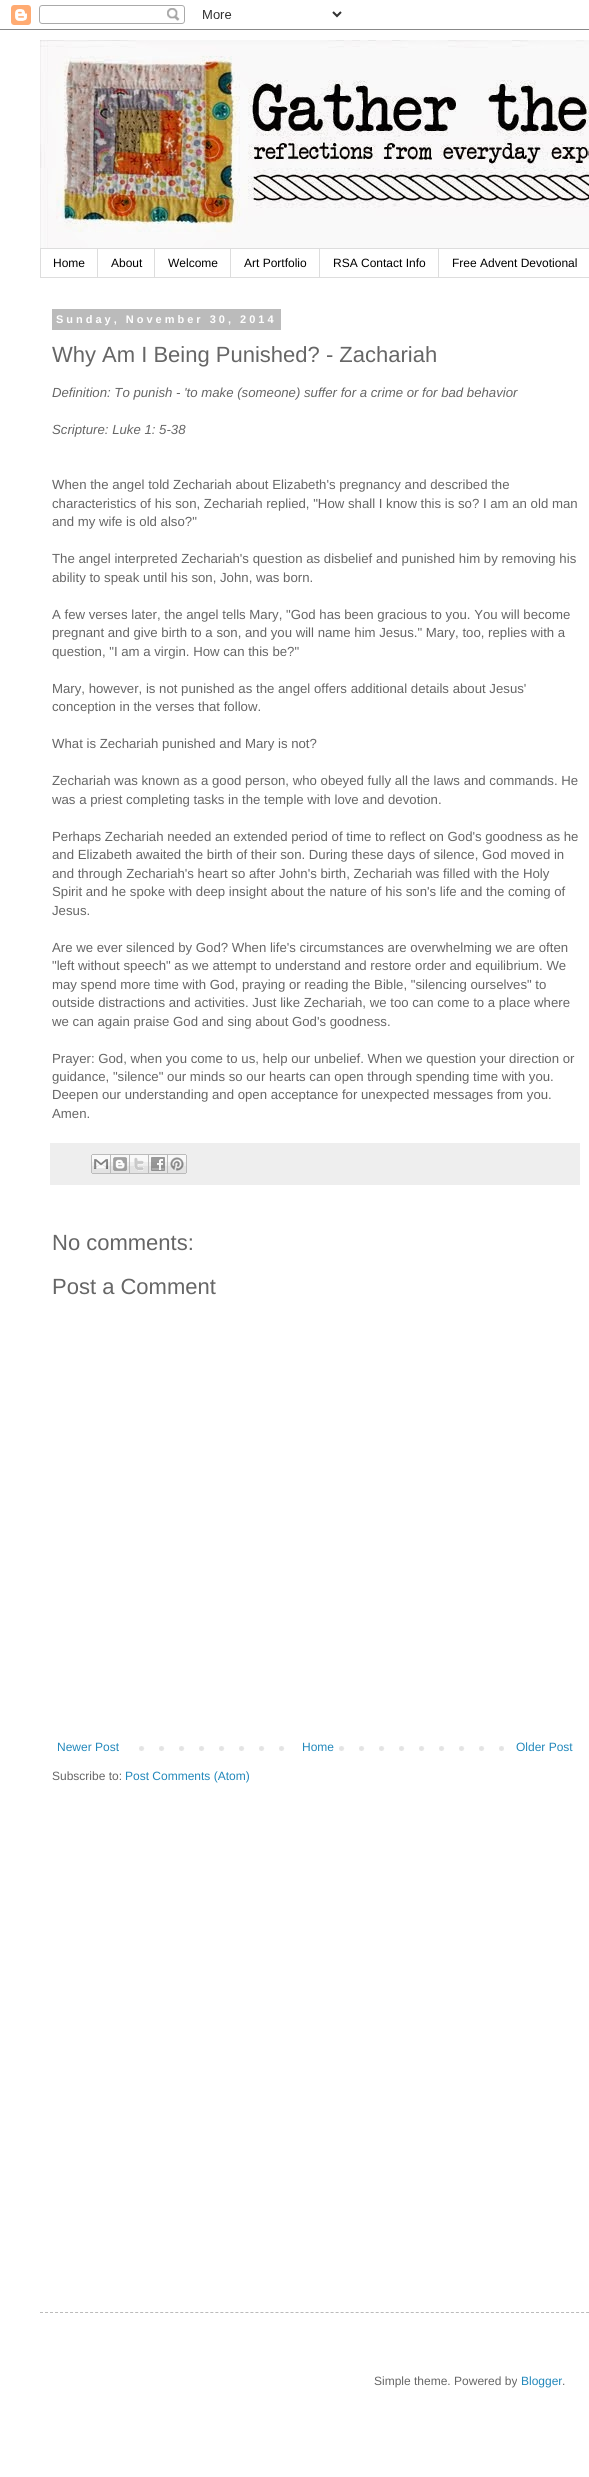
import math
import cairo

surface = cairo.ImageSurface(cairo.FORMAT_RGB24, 589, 2477)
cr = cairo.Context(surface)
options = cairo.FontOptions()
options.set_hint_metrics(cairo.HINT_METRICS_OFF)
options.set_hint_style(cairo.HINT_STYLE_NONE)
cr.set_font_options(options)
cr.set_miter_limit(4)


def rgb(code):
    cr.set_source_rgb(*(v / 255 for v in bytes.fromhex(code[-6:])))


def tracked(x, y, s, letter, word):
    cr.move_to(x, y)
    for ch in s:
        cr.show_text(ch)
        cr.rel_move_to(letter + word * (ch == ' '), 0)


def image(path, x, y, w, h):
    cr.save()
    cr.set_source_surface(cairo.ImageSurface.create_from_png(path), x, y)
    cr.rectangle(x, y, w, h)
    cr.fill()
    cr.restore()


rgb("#ffffff")
cr.paint()
image("img/1.png", 0, 5, 589, 25)
image("img/2.png", 40, 40, 549, 208)
cr.rectangle(40.5, 248.5, 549, 29)
rgb("#dddddd")
cr.set_line_width(1)
cr.stroke()
for x, y, w, h, color in [
    (97, 249, 1, 28, "#dddddd"),
    (154, 249, 1, 28, "#dddddd"),
    (230, 249, 1, 28, "#dddddd"),
    (319, 249, 1, 28, "#dddddd"),
    (438, 249, 1, 28, "#dddddd"),
    (52, 309, 229, 21, "#bbbbbb"),
    (50, 1143, 530, 42, "#eeeeee"),
]:
    rgb(color)
    cr.rectangle(x, y, w, h)
    cr.fill()
image("img/3.png", 91, 1154, 20, 20)
image("img/4.png", 111, 1154, 19, 20)
image("img/5.png", 130, 1154, 19, 20)
image("img/6.png", 149, 1154, 19, 20)
image("img/7.png", 168, 1154, 19, 20)
image("img/8.png", 139, 1746, 365, 5)
rgb("#ffffff")
cr.rectangle(299, 1746, 26, 5)
cr.fill()
cr.new_path()
cr.move_to(40, 2312.5)
cr.line_to(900, 2312.5)
rgb("#bbbbbb")
cr.set_dash([3, 2.01])
cr.stroke()
cr.select_font_face("Liberation Sans")
cr.set_font_size(12)
rgb("#000000")
for x, y, s in [
    (53, 267, "Home"),
    (111, 267, "About"),
    (168, 267, "Welcome"),
    (244, 267, "Art Portfolio"),
    (333, 267, "RSA Contact Info"),
    (452, 267, "Free Advent Devotional"),
]:
    cr.move_to(x, y)
    cr.show_text(s)
cr.select_font_face("Liberation Sans", cairo.FONT_SLANT_NORMAL, cairo.FONT_WEIGHT_BOLD)
cr.set_font_size(11)
rgb("#ffffff")
tracked(56, 323, "Sunday, November 30, 2014", 3, 0)
cr.select_font_face("Liberation Sans")
cr.set_font_size(22)
rgb("#666666")
cr.move_to(52, 362)
cr.show_text("Why Am I Being Punished? - Zachariah")
cr.select_font_face("Liberation Sans", cairo.FONT_SLANT_ITALIC)
cr.set_font_size(13.2)
cr.move_to(52, 397)
cr.show_text("Definition: To punish - 'to make (someone) suffer for a crime or for bad behavior")
cr.move_to(52, 434)
cr.show_text("Scripture: Luke 1: 5-38")
cr.select_font_face("Liberation Sans")
for x, y, s in [
    (52, 489, "When the angel told Zechariah about Elizabeth's pregnancy and described the"),
    (52, 508, "characteristics of his son, Zechariah replied, \"How shall I know this is so? I am an old man"),
    (52, 526, "and my wife is old also?\""),
    (52, 563, "The angel interpreted Zechariah's question as disbelief and punished him by removing his"),
    (52, 582, "ability to speak until his son, John, was born."),
    (52, 619, "A few verses later, the angel tells Mary, \"God has been gracious to you. You will become"),
    (52, 637, "pregnant and give birth to a son, and you will name him Jesus.\" Mary, too, replies with a"),
    (52, 656, "question, \"I am a virgin. How can this be?\""),
    (52, 693, "Mary, however, is not punished as the angel offers additional details about Jesus'"),
    (52, 711, "conception in the verses that follow."),
    (52, 748, "What is Zechariah punished and Mary is not?"),
    (52, 785, "Zechariah was known as a good person, who obeyed fully all the laws and commands. He"),
    (52, 804, "was a priest completing tasks in the temple with love and devotion."),
    (52, 841, "Perhaps Zechariah needed an extended period of time to reflect on God's goodness as he"),
    (52, 859, "and Elizabeth awaited the birth of their son. During these days of silence, God moved in"),
    (52, 878, "and through Zechariah's heart so after John's birth, Zechariah was filled with the Holy"),
    (52, 896, "Spirit and he spoke with deep insight about the nature of his son's life and the coming of"),
    (52, 915, "Jesus."),
    (52, 952, "Are we ever silenced by God? When life's circumstances are overwhelming we are often"),
    (52, 970, "\"left without speech\" as we attempt to understand and restore order and equilibrium. We"),
    (52, 989, "may spend more time with God, praying or reading the Bible, \"silencing ourselves\" to"),
    (52, 1007, "outside distractions and activities. Just like Zechariah, we too can come to a place where"),
    (52, 1026, "we can again praise God and sing about God's goodness."),
    (52, 1063, "Prayer: God, when you come to us, help our unbelief. When we question your direction or"),
    (52, 1081, "guidance, \"silence\" our minds so our hearts can open through spending time with you."),
    (52, 1099, "Deepen our understanding and open acceptance for unexpected messages from you."),
    (52, 1118, "Amen."),
]:
    cr.move_to(x, y)
    cr.show_text(s)
cr.set_font_size(22)
cr.move_to(52, 1250)
cr.show_text("No comments:")
cr.move_to(52, 1294)
cr.show_text("Post a Comment")
cr.set_font_size(12)
rgb("#2288bb")
for x, y, s in [
    (57, 1751, "Newer Post"),
    (302, 1751, "Home"),
    (516, 1751, "Older Post"),
]:
    cr.move_to(x, y)
    cr.show_text(s)
rgb("#666666")
cr.move_to(52, 1780)
cr.show_text("Subscribe to:")
rgb("#2288bb")
cr.move_to(125, 1780)
cr.show_text("Post Comments (Atom)")
rgb("#666666")
cr.move_to(374, 2385)
cr.show_text("Simple theme. Powered by")
rgb("#2288bb")
cr.move_to(521, 2385)
cr.show_text("Blogger")
rgb("#666666")
cr.move_to(562, 2385)
cr.show_text(".")
surface.write_to_png("page.png")
